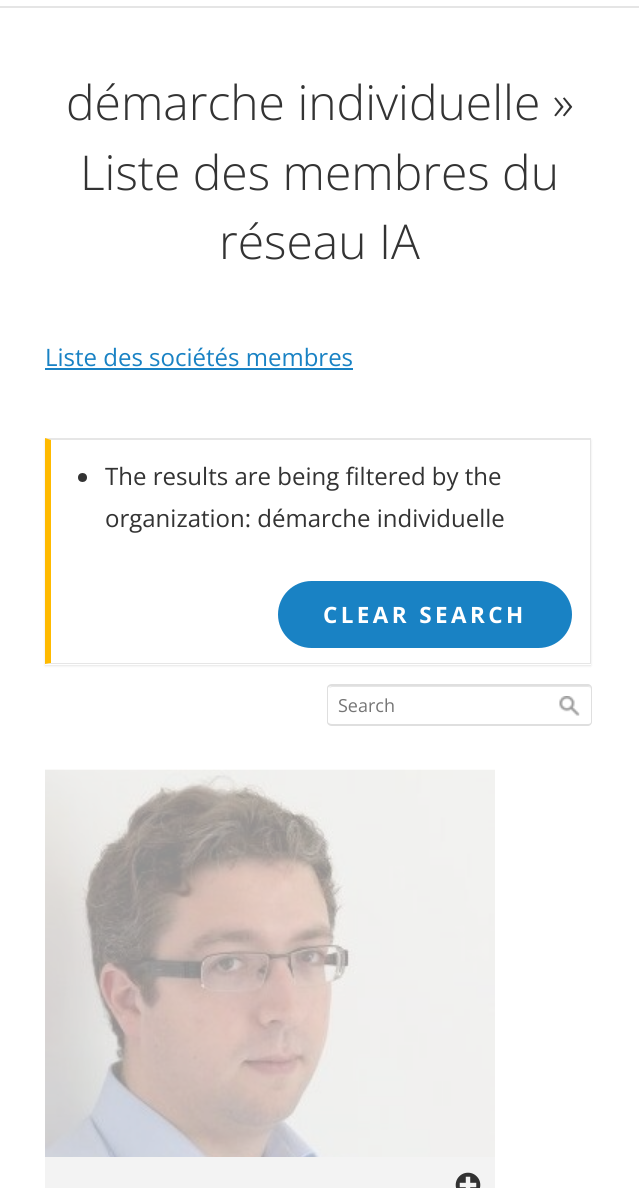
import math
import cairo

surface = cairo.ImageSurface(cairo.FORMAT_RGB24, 639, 1188)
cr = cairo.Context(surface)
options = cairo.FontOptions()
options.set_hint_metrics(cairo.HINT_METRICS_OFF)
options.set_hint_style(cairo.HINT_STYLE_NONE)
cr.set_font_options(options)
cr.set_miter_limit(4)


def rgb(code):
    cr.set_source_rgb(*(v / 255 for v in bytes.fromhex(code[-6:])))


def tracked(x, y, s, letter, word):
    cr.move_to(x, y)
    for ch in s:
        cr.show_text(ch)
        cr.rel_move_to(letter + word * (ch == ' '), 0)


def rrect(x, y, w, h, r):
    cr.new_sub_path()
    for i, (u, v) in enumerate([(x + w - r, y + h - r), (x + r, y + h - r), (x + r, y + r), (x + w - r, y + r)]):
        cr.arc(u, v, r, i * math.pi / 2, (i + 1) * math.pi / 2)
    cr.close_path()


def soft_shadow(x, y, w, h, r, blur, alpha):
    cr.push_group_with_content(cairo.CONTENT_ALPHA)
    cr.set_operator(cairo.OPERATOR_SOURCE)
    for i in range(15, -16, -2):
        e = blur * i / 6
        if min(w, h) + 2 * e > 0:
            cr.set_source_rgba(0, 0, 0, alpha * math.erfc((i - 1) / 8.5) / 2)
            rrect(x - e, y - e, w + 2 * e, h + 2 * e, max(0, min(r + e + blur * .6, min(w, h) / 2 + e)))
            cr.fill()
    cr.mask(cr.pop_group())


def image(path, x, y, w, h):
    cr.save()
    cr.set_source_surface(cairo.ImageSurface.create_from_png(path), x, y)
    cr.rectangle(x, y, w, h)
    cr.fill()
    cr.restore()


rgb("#ffffff")
cr.paint()
rgb("#e5e5e5")
cr.rectangle(0, 6, 639, 2)
cr.fill()
rgb("#1982c4")
cr.rectangle(45, 368, 308, 2)
cr.fill()
cr.save()
cr.set_fill_rule(cairo.FILL_RULE_EVEN_ODD)
cr.new_path()
cr.move_to(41, 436)
cr.line_to(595, 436)
cr.line_to(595, 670)
cr.line_to(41, 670)
cr.close_path()
cr.move_to(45, 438)
cr.line_to(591, 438)
cr.line_to(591, 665)
cr.line_to(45, 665)
cr.close_path()
cr.clip()
rgb("#000000")
soft_shadow(45, 440, 546, 226, 0, 1, 0.1)
cr.restore()
rgb("#e6e6e6")
cr.new_path()
cr.move_to(45, 438)
cr.line_to(591, 438)
cr.line_to(590, 440)
cr.line_to(51, 440)
cr.close_path()
cr.fill()
cr.set_source_rgba(0, 0, 0, 0.1)
cr.new_path()
cr.move_to(591, 438)
cr.line_to(591, 664)
cr.line_to(590, 663)
cr.line_to(590, 440)
cr.close_path()
cr.fill()
cr.new_path()
cr.move_to(591, 664)
cr.line_to(45, 664)
cr.line_to(51, 663)
cr.line_to(590, 663)
cr.close_path()
cr.fill()
rgb("#ffba00")
cr.new_path()
cr.move_to(45, 664)
cr.line_to(45, 438)
cr.line_to(51, 440)
cr.line_to(51, 663)
cr.close_path()
cr.fill()
rgb("#333333")
cr.arc(82.5, 477.5, 4.5, 0, 2 * math.pi)
cr.fill()
rgb("#1982c4")
rrect(278, 581, 294, 67, 33.5)
cr.fill()
rgb("#e6e6e6")
cr.new_path()
cr.move_to(332, 687)
cr.line_to(548, 687)
cr.line_to(548, 686)
cr.line_to(332, 686)
cr.curve_to(331, 686, 330, 687, 329, 688)
cr.close_path()
cr.fill()
rgb("#dfdfdf")
cr.set_fill_rule(cairo.FILL_RULE_EVEN_ODD)
cr.new_path()
cr.move_to(332, 684)
cr.line_to(548, 684)
cr.line_to(548, 726)
cr.line_to(332, 726)
cr.curve_to(329, 726, 327, 724, 327, 722)
cr.line_to(327, 688)
cr.curve_to(327, 686, 329, 684, 332, 684)
cr.close_path()
cr.move_to(332, 686)
cr.line_to(548, 686)
cr.line_to(548, 724)
cr.line_to(332, 724)
cr.curve_to(330, 724, 328, 723, 328, 722)
cr.line_to(328, 688)
cr.curve_to(328, 687, 330, 686, 332, 686)
cr.close_path()
cr.fill()
image("img/1.png", 559, 696, 21, 20)
rgb("#e6e6e6")
cr.set_fill_rule(cairo.FILL_RULE_WINDING)
cr.new_path()
cr.move_to(548, 687)
cr.line_to(588, 687)
cr.curve_to(590, 687, 591, 688, 591, 690)
cr.line_to(591, 689)
cr.curve_to(591, 687, 590, 686, 588, 686)
cr.line_to(548, 686)
cr.close_path()
cr.fill()
rgb("#dfdfdf")
cr.set_fill_rule(cairo.FILL_RULE_EVEN_ODD)
cr.new_path()
cr.move_to(548, 684)
cr.line_to(588, 684)
cr.curve_to(590, 684, 592, 686, 592, 688)
cr.line_to(592, 722)
cr.curve_to(592, 724, 590, 726, 588, 726)
cr.line_to(548, 726)
cr.close_path()
cr.move_to(548, 686)
cr.line_to(588, 686)
cr.curve_to(590, 686, 591, 687, 591, 688)
cr.line_to(591, 722)
cr.curve_to(591, 723, 590, 724, 588, 724)
cr.line_to(548, 724)
cr.close_path()
cr.fill()
rgb("#f3f3f3")
cr.rectangle(45, 770, 450, 418)
cr.fill()
image("img/2.png", 45, 769, 450, 388)
image("img/3.png", 455, 1172, 26, 16)
cr.select_font_face("Open Sans Light")
cr.set_font_size(48)
rgb("#333333")
for x, y, s in [
    (66, 120, "démarche individuelle »"),
    (80, 190, "Liste des membres du"),
    (219, 259, "réseau IA"),
]:
    cr.move_to(x, y)
    cr.show_text(s)
cr.select_font_face("Open Sans")
cr.set_font_size(24)
rgb("#1982c4")
cr.move_to(45, 366)
cr.show_text("Liste des sociétés membres")
rgb("#333333")
cr.move_to(105, 485)
cr.show_text("The results are being filtered by the")
cr.move_to(105, 527)
cr.show_text("organization: démarche individuelle")
cr.select_font_face("Open Sans", cairo.FONT_SLANT_NORMAL, cairo.FONT_WEIGHT_BOLD)
cr.set_font_size(22.5)
rgb("#ffffff")
tracked(323, 623, "CLEAR SEARCH", 3.4, 0)
cr.select_font_face("Open Sans")
cr.set_font_size(18)
rgb("#757575")
cr.move_to(338, 712)
cr.show_text("Search")
surface.write_to_png("page.png")
